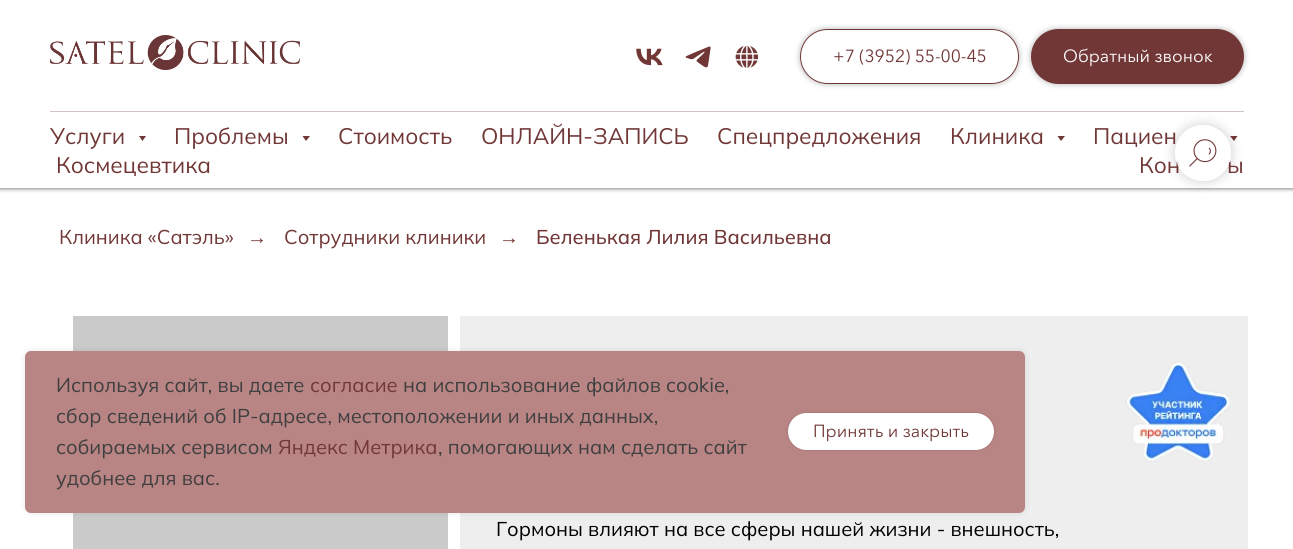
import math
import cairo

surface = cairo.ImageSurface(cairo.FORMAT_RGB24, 1293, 549)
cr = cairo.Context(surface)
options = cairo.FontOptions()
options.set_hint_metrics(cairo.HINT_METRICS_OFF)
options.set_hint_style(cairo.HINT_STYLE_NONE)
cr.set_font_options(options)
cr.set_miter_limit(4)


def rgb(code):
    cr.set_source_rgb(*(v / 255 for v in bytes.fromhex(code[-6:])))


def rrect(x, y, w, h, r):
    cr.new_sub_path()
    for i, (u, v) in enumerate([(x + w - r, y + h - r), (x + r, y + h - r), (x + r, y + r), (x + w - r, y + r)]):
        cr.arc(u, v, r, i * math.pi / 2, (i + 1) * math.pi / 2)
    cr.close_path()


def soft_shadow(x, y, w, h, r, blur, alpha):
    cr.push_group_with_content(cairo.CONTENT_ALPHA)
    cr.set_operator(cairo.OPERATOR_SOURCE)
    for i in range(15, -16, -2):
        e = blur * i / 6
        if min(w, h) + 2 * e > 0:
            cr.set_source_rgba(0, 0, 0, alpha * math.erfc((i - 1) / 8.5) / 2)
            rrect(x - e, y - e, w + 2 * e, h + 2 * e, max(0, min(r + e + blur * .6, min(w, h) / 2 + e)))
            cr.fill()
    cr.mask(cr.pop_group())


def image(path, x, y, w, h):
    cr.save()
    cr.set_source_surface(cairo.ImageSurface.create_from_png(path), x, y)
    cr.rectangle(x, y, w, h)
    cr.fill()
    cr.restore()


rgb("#ffffff")
cr.paint()
rgb("#000000")
soft_shadow(0, 1, 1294, 188, 0, 2, 0.5)
rgb("#ffffff")
cr.rectangle(0, 0, 1293, 188)
cr.fill()
image("img/1.png", 50, 35, 250, 35)
image("img/2.png", 636, 48, 27, 18)
image("img/3.png", 685, 46, 26, 22)
image("img/4.png", 735, 45, 24, 23)
cr.save()
cr.set_fill_rule(cairo.FILL_RULE_EVEN_ODD)
cr.new_path()
cr.move_to(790, 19)
cr.line_to(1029, 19)
cr.line_to(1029, 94)
cr.line_to(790, 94)
cr.close_path()
cr.move_to(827.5, 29)
cr.line_to(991.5, 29)
cr.curve_to(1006.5, 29, 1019, 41.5, 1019, 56.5)
cr.curve_to(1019, 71.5, 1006.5, 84, 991.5, 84)
cr.line_to(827.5, 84)
cr.curve_to(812.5, 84, 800, 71.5, 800, 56.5)
cr.curve_to(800, 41.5, 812.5, 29, 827.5, 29)
cr.close_path()
cr.clip()
rgb("#000000")
soft_shadow(800, 29, 219, 55, 27.5, 3, 0.3)
cr.restore()
rrect(800.5, 29.5, 218, 54, 27)
rgb("#713737")
cr.set_line_width(1)
cr.stroke()
rgb("#000000")
soft_shadow(1031, 29, 213, 55, 27.5, 3, 0.3)
rgb("#713737")
rrect(1031, 29, 213, 55, 27.5)
cr.fill()
rgb("#d4c3c3")
cr.rectangle(50, 111, 1194, 1)
cr.fill()
rgb("#713737")
cr.new_path()
cr.move_to(139, 136)
cr.line_to(146, 136)
cr.line_to(142.5, 141)
cr.close_path()
cr.fill()
cr.new_path()
cr.move_to(302.5, 136)
cr.line_to(310, 136)
cr.line_to(306, 141)
cr.close_path()
cr.fill()
cr.new_path()
cr.move_to(1057.5, 136)
cr.line_to(1065, 136)
cr.line_to(1061, 141)
cr.close_path()
cr.fill()
cr.new_path()
cr.move_to(1230, 136)
cr.line_to(1237.5, 136)
cr.line_to(1234, 141)
cr.close_path()
cr.fill()
cr.save()
cr.set_fill_rule(cairo.FILL_RULE_EVEN_ODD)
cr.new_path()
cr.move_to(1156, 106)
cr.line_to(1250, 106)
cr.line_to(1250, 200)
cr.line_to(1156, 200)
cr.close_path()
cr.move_to(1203, 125)
cr.curve_to(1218.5, 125, 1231, 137.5, 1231, 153)
cr.curve_to(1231, 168.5, 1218.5, 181, 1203, 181)
cr.curve_to(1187.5, 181, 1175, 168.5, 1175, 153)
cr.curve_to(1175, 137.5, 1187.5, 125, 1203, 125)
cr.close_path()
cr.clip()
rgb("#000000")
soft_shadow(1175, 125, 56, 56, 28, 6, 0.2)
cr.restore()
rgb("#cacaca")
cr.rectangle(73, 316, 375, 233)
cr.fill()
rgb("#eeeeee")
cr.rectangle(460, 316, 788, 233)
cr.fill()
rgb("#000000")
soft_shadow(25, 351, 1000, 162, 6, 3, 0.1)
rgb("#b88484")
rrect(25, 351, 1000, 162, 6)
cr.fill()
rgb("#000000")
soft_shadow(788, 413, 206, 37, 18.5, 1, 0.2)
rgb("#ffffff")
rrect(788, 413, 206, 37, 18.5)
cr.fill()
image("img/6.png", 1126, 362, 104, 100)
cr.select_font_face("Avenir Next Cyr")
cr.set_font_size(17.5)
rgb("#713737")
cr.move_to(833, 62)
cr.show_text("+7 (3952) 55-00-45")
rgb("#ffffff")
cr.move_to(1063, 62)
cr.show_text("Обратный звонок")
cr.select_font_face("Mulish")
cr.set_font_size(22.5)
rgb("#713737")
for x, y, s in [
    (50, 144, "Услуги"),
    (174, 144, "Проблемы"),
    (338, 144, "Стоимость"),
    (481, 144, "ОНЛАЙН-ЗАПИСЬ"),
    (717, 144, "Спецпредложения"),
    (950, 144, "Клиника"),
    (1093, 144, "Пациен"),
    (56, 173, "Космецевтика"),
    (1139, 173, "Кон"),
    (1227, 173, "ы"),
]:
    cr.move_to(x, y)
    cr.show_text(s)
cr.set_source_rgba(1, 1, 1, 0.8)
cr.new_path()
cr.arc(1203, 153, 28, 0, 2 * math.pi)
cr.fill()
image("img/5.png", 1189, 139, 28, 28)
cr.set_font_size(20)
rgb("#713737")
cr.move_to(59, 244)
cr.show_text("Клиника «Сатэль»")
cr.select_font_face("Liberation Sans")
cr.move_to(247, 244)
cr.show_text("→")
cr.select_font_face("Mulish")
cr.move_to(284, 244)
cr.show_text("Сотрудники клиники")
cr.select_font_face("Liberation Sans")
cr.move_to(499, 244)
cr.show_text("→")
cr.select_font_face("Mulish Medium")
cr.move_to(536, 244)
cr.show_text("Беленькая Лилия Васильевна")
cr.select_font_face("Mulish")
rgb("#3f3f3f")
cr.move_to(56, 392)
cr.show_text("Используя сайт, вы даете")
rgb("#713737")
cr.move_to(310, 392)
cr.show_text("согласие")
rgb("#3f3f3f")
for x, y, s in [
    (403, 392, "на использование файлов cookie,"),
    (56, 423, "сбор сведений об IP-адресе, местоположении и иных данных,"),
    (56, 454, "собираемых сервисом"),
]:
    cr.move_to(x, y)
    cr.show_text(s)
rgb("#713737")
cr.move_to(278, 454)
cr.show_text("Яндекс Метрика")
rgb("#3f3f3f")
cr.move_to(438, 454)
cr.show_text(", помогающих нам сделать сайт")
cr.move_to(56, 485)
cr.show_text("удобнее для вас.")
cr.select_font_face("Avenir Next Cyr")
cr.set_font_size(17.5)
rgb("#713737")
cr.move_to(813, 437)
cr.show_text("Принять и закрыть")
cr.select_font_face("Mulish")
cr.set_font_size(20)
rgb("#000000")
cr.move_to(496, 536)
cr.show_text("Гормоны влияют на все сферы нашей жизни - внешность,")
surface.write_to_png("page.png")
